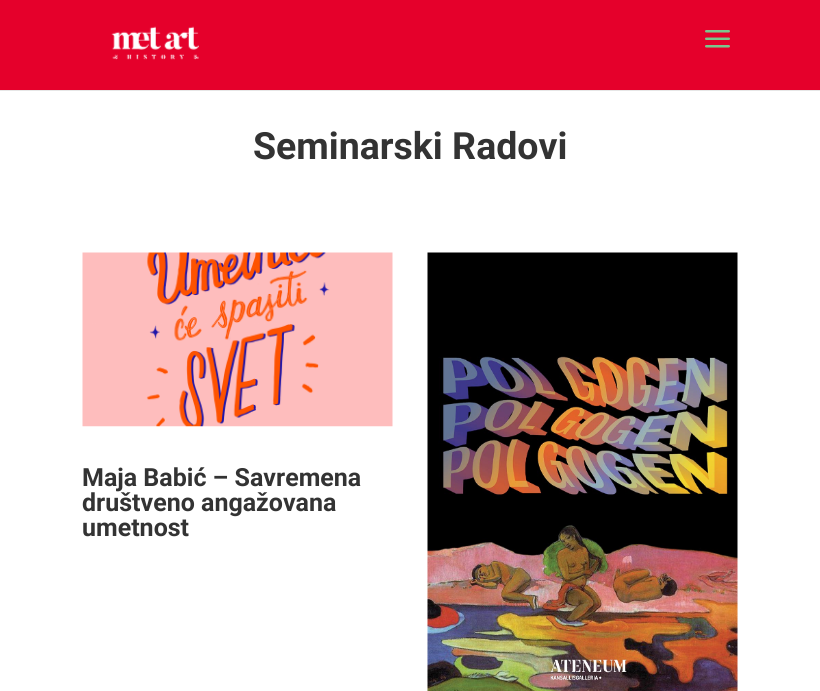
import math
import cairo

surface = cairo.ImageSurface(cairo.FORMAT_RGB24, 820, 691)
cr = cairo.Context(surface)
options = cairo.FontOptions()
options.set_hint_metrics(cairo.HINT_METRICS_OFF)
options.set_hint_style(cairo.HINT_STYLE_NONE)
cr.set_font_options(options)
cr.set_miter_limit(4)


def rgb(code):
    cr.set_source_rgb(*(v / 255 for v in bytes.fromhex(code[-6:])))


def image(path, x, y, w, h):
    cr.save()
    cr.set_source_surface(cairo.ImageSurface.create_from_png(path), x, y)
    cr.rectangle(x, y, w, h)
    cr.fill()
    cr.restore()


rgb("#ffffff")
cr.paint()
rgb("#e6e6e6")
cr.rectangle(0, 90, 820, 1)
cr.fill()
rgb("#e5002b")
cr.rectangle(0, 0, 820, 90)
cr.fill()
image("img/1.png", 111, 26, 88, 34)
image("img/2.png", 705, 30, 25, 18)
image("img/3.png", 82, 252, 311, 175)
image("img/4.png", 427, 252, 311, 439)
cr.select_font_face("Roboto", cairo.FONT_SLANT_NORMAL, cairo.FONT_WEIGHT_BOLD)
cr.set_font_size(37.5)
rgb("#333333")
cr.move_to(253, 159)
cr.show_text("Seminarski Radovi")
cr.set_font_size(25)
for x, y, s in [
    (82, 486, "Maja Babić – Savremena"),
    (82, 511, "društveno angažovana"),
    (82, 536, "umetnost"),
]:
    cr.move_to(x, y)
    cr.show_text(s)
surface.write_to_png("page.png")
